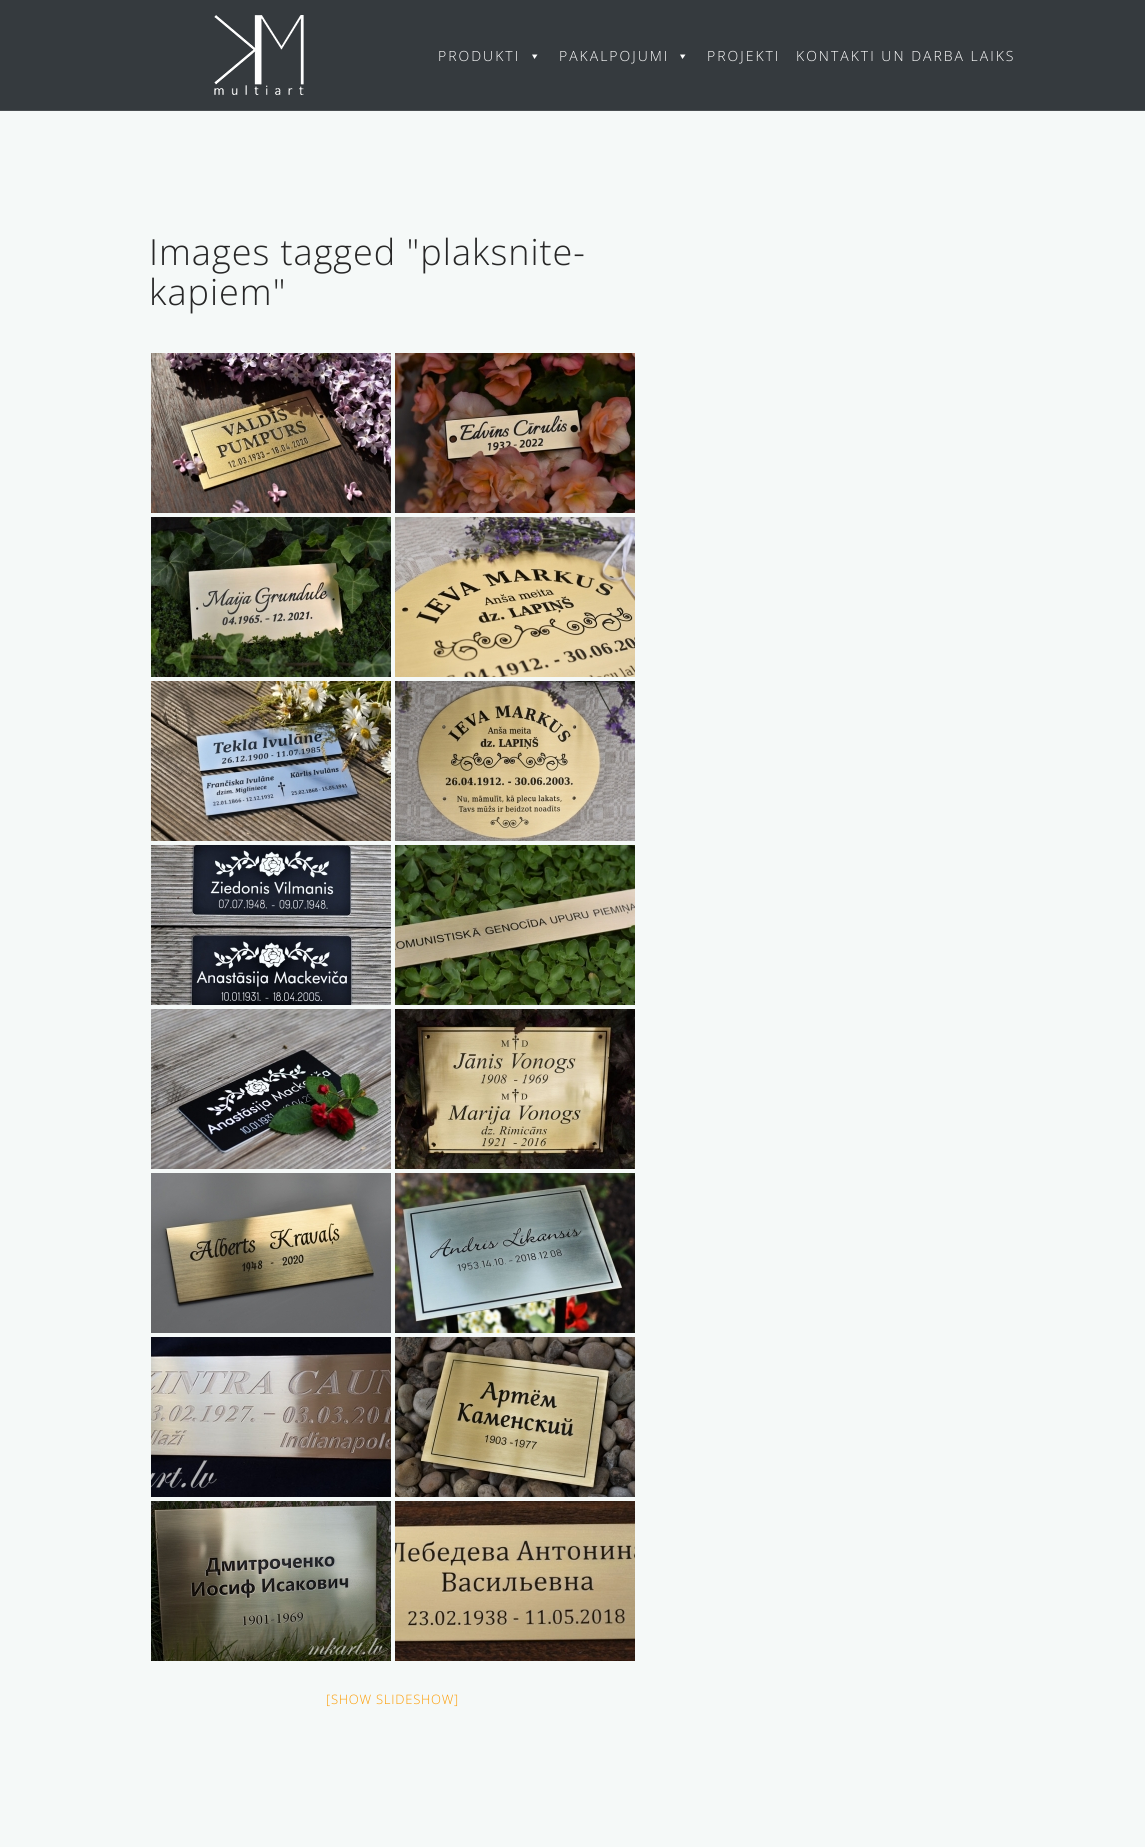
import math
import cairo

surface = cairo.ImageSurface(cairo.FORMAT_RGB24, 1145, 1847)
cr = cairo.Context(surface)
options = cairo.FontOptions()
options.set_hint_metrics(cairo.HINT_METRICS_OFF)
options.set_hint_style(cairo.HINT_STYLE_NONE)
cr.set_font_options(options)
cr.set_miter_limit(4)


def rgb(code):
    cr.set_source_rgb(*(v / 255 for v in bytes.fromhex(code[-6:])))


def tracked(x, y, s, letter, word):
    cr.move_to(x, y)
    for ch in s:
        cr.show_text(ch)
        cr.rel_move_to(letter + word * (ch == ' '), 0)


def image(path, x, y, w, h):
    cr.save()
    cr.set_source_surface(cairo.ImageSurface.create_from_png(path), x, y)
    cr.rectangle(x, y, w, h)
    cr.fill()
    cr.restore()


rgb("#f5f9f8")
cr.paint()
rgb("#353a3e")
cr.rectangle(0, 0, 1145, 110)
cr.fill()
rgb("#494e51")
cr.rectangle(0, 110, 1145, 1)
cr.fill()
image("img/1.png", 214, 15, 90, 80)
rgb("#ffffff")
cr.new_path()
cr.move_to(537.5, 54.5)
cr.line_to(534.5, 59)
cr.line_to(532, 54.5)
cr.close_path()
cr.fill()
cr.new_path()
cr.move_to(685.5, 54.5)
cr.line_to(682.5, 59)
cr.line_to(680, 54.5)
cr.close_path()
cr.fill()
image("img/2.png", 151, 353, 240, 160)
image("img/3.png", 395, 353, 240, 160)
image("img/4.png", 151, 517, 240, 160)
image("img/5.png", 395, 517, 240, 160)
image("img/6.png", 151, 681, 240, 160)
image("img/7.png", 395, 681, 240, 160)
image("img/8.png", 151, 845, 240, 160)
image("img/9.png", 395, 845, 240, 160)
image("img/10.png", 151, 1009, 240, 160)
image("img/11.png", 395, 1009, 240, 160)
image("img/12.png", 151, 1173, 240, 160)
image("img/13.png", 395, 1173, 240, 160)
image("img/14.png", 151, 1337, 240, 160)
image("img/15.png", 395, 1337, 240, 160)
image("img/16.png", 151, 1501, 240, 160)
image("img/17.png", 395, 1501, 240, 160)
cr.select_font_face("Open Sans Light")
cr.set_font_size(14)
for x, y, s in [
    (438, 61, "PRODUKTI"),
    (559, 61, "PAKALPOJUMI"),
    (707, 61, "PROJEKTI"),
    (796, 61, "KONTAKTI UN DARBA LAIKS"),
]:
    tracked(x, y, s, 2, 0)
cr.set_font_size(36)
rgb("#272727")
tracked(149, 265, "Images tagged \"plaksnite-", 1, 0)
tracked(149, 305, "kapiem\"", 1, 0)
cr.set_font_size(13)
rgb("#fc9b00")
tracked(326, 1704, "[SHOW SLIDESHOW]", 0.75, 0)
surface.write_to_png("page.png")
